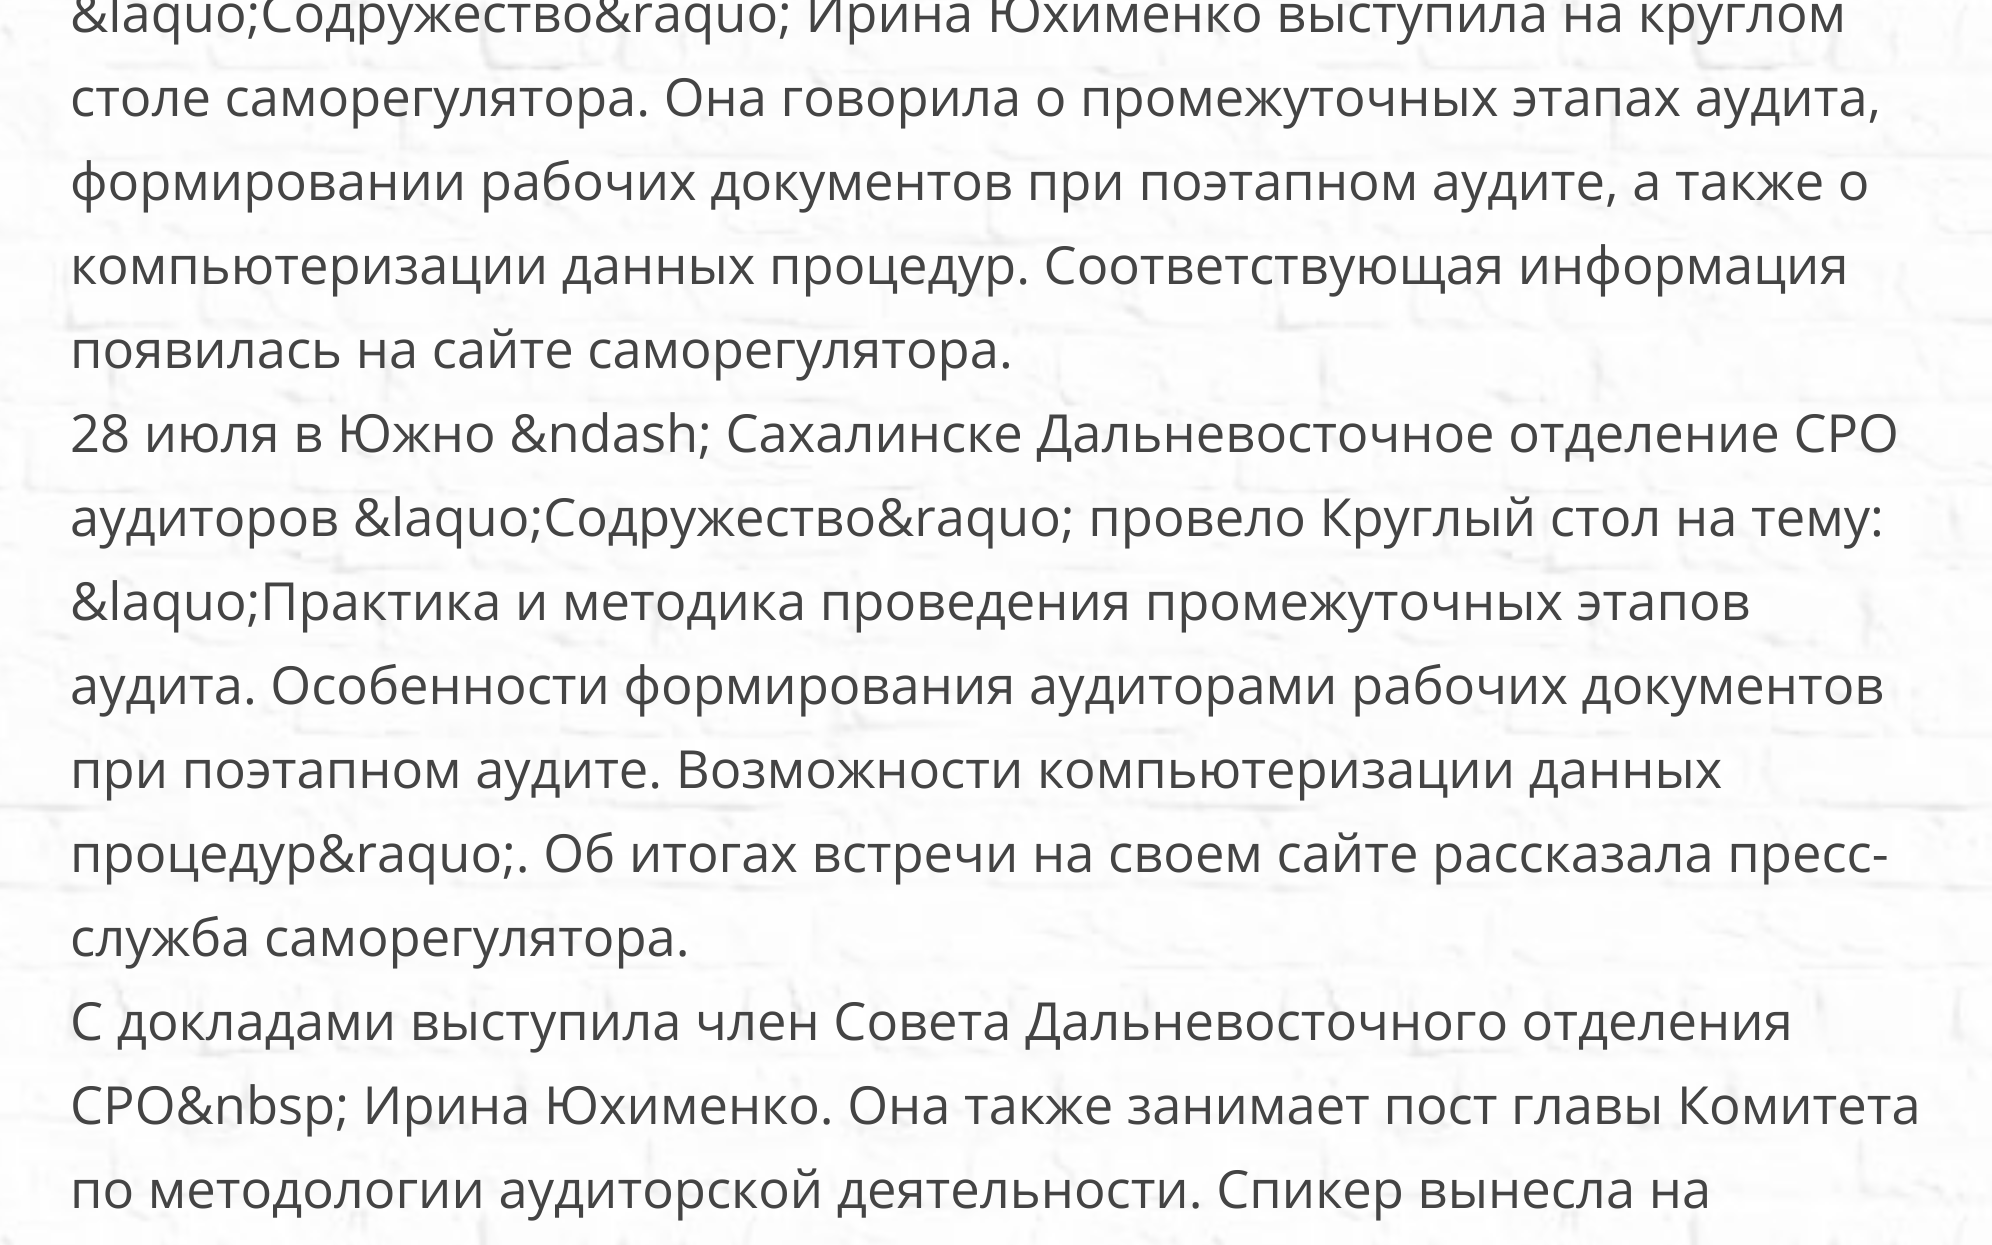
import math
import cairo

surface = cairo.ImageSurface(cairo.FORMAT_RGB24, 1992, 1245)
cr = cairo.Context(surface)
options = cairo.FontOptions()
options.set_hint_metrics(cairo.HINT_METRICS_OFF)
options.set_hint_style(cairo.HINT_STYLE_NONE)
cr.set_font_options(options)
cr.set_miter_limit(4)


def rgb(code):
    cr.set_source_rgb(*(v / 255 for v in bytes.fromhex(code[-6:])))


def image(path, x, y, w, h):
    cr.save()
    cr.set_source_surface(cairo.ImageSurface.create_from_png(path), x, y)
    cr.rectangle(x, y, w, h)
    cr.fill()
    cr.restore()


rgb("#ffffff")
cr.paint()
image("img/1.png", 0, 0, 1992, 1245)
cr.select_font_face("Open Sans")
cr.set_font_size(52.5)
rgb("#444444")
for x, y, s in [
    (70, 32, "&laquo;Содружество&raquo; Ирина Юхименко выступила на круглом"),
    (70, 116, "столе саморегулятора. Она говорила о промежуточных этапах аудита,"),
    (70, 200, "формировании рабочих документов при поэтапном аудите, а также о"),
    (70, 284, "компьютеризации данных процедур. Соответствующая информация"),
    (70, 368, "появилась на сайте саморегулятора."),
    (70, 452, "28 июля в Южно &ndash; Сахалинске Дальневосточное отделение СРО"),
    (70, 536, "аудиторов &laquo;Содружество&raquo; провело Круглый стол на тему:"),
    (70, 620, "&laquo;Практика и методика проведения промежуточных этапов"),
    (70, 704, "аудита. Особенности формирования аудиторами рабочих документов"),
    (70, 788, "при поэтапном аудите. Возможности компьютеризации данных"),
    (70, 872, "процедур&raquo;. Об итогах встречи на своем сайте рассказала пресс-"),
    (70, 956, "служба саморегулятора."),
    (70, 1040, "С докладами выступила член Совета Дальневосточного отделения"),
    (70, 1124, "СРО&nbsp; Ирина Юхименко. Она также занимает пост главы Комитета"),
    (70, 1208, "по методологии аудиторской деятельности. Спикер вынесла на"),
]:
    cr.move_to(x, y)
    cr.show_text(s)
surface.write_to_png("page.png")
